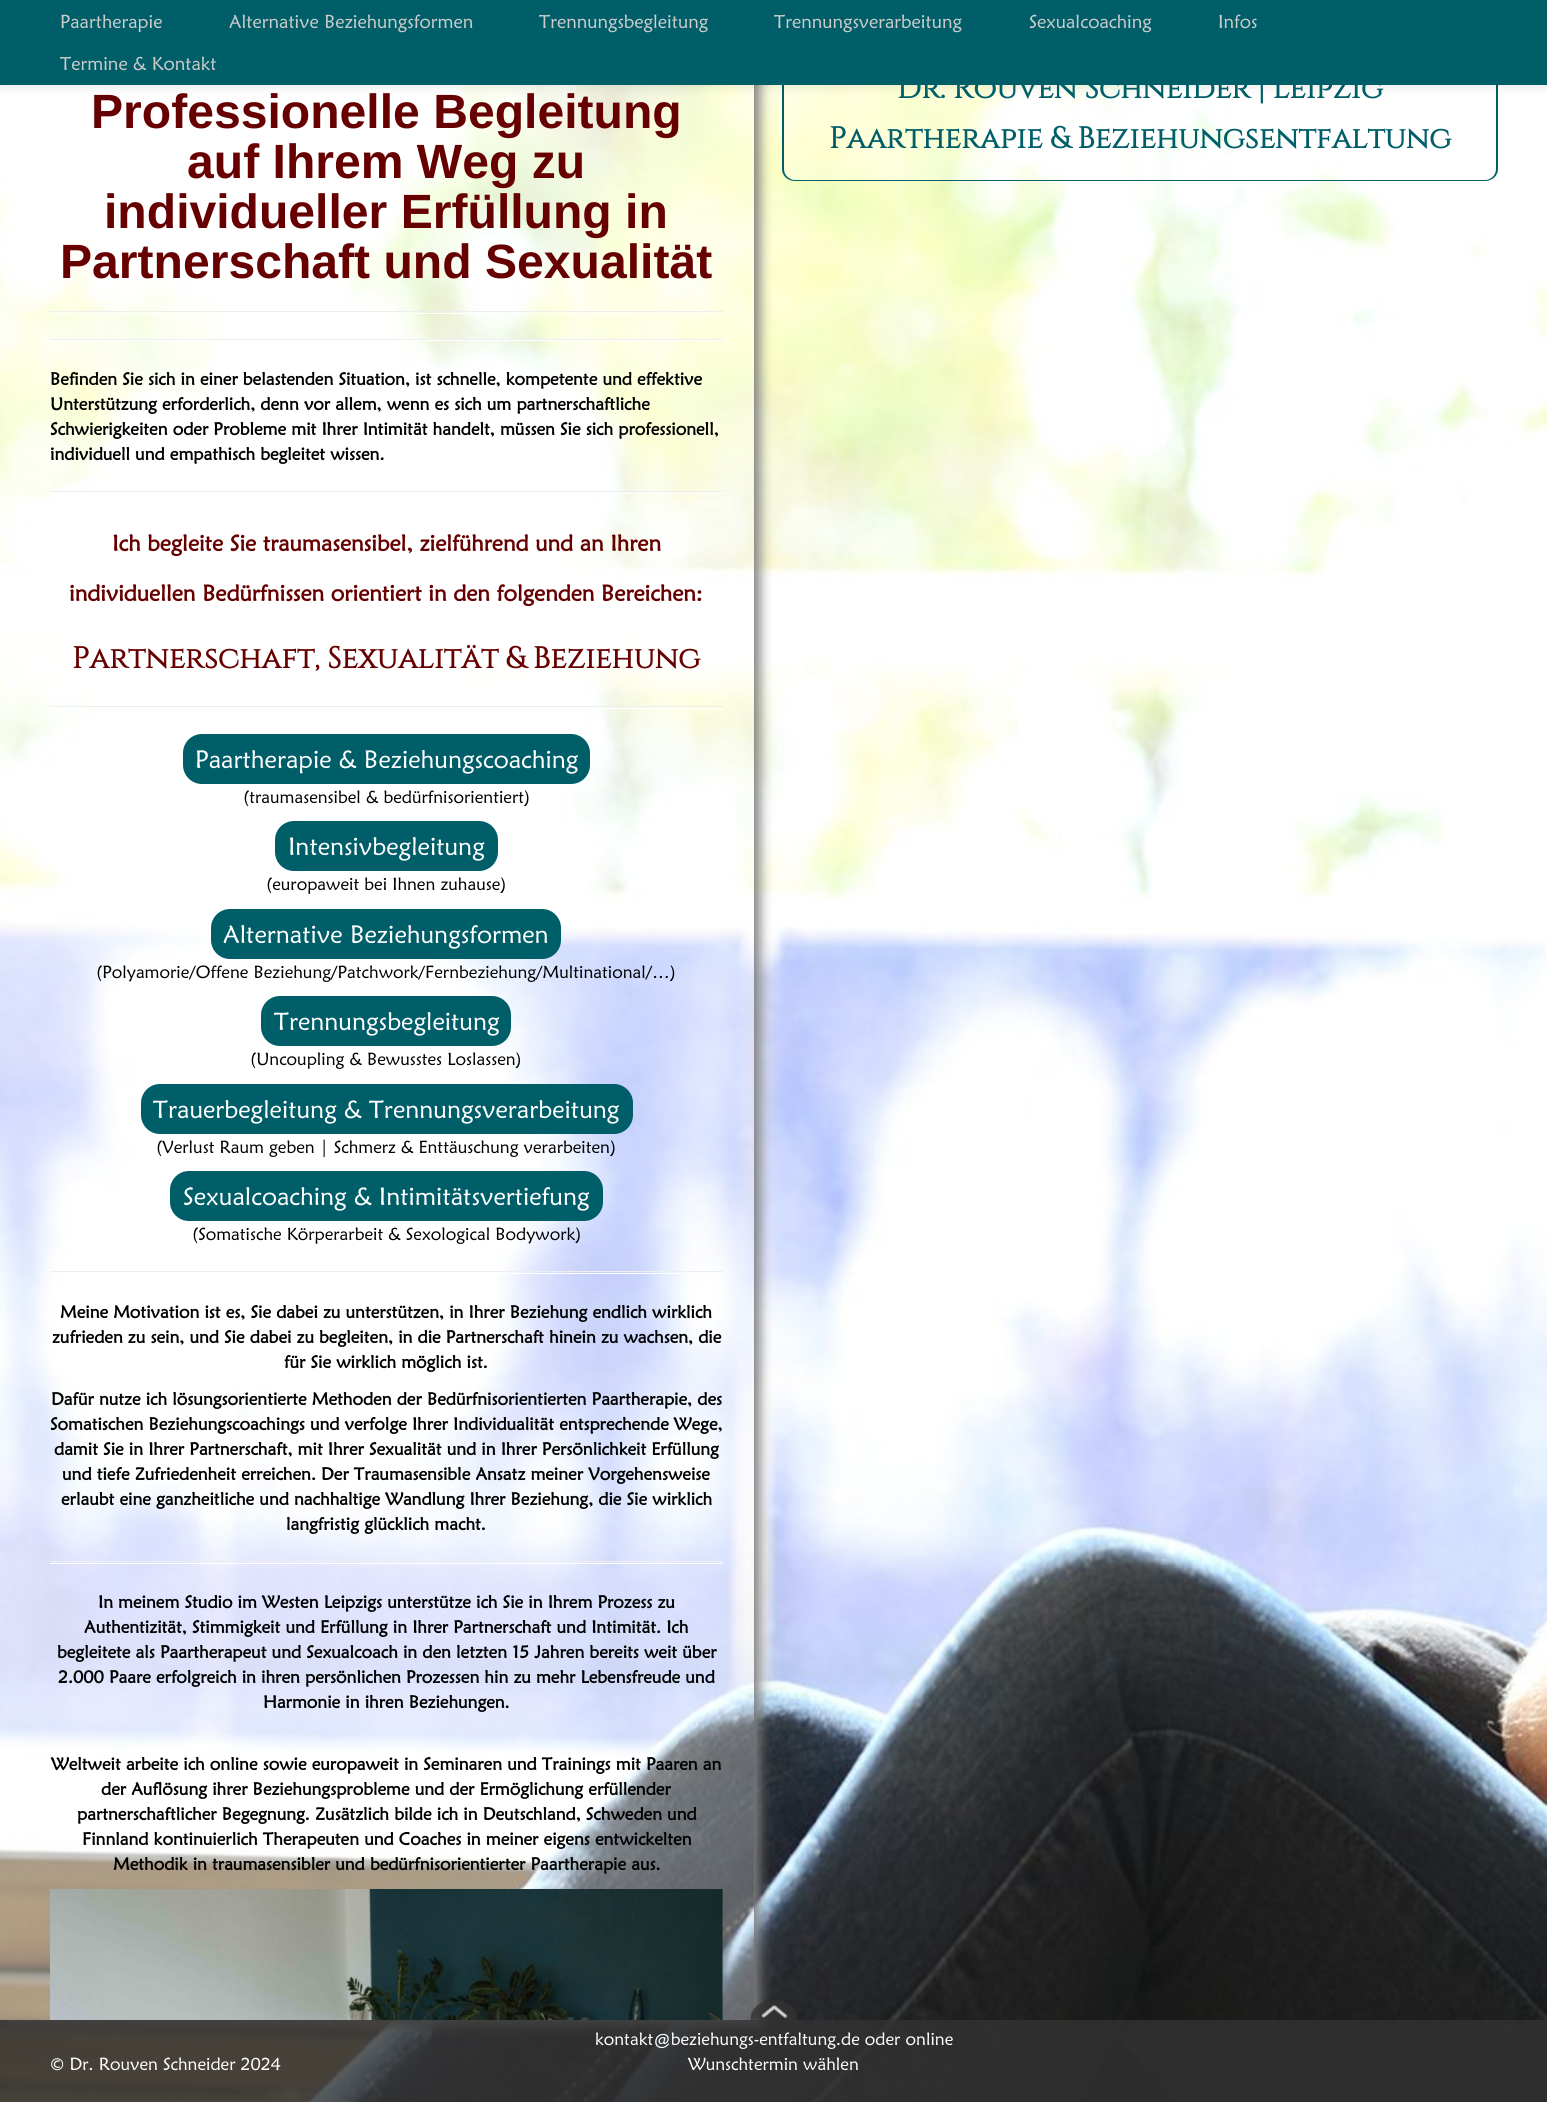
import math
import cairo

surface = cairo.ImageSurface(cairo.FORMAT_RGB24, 1547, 2102)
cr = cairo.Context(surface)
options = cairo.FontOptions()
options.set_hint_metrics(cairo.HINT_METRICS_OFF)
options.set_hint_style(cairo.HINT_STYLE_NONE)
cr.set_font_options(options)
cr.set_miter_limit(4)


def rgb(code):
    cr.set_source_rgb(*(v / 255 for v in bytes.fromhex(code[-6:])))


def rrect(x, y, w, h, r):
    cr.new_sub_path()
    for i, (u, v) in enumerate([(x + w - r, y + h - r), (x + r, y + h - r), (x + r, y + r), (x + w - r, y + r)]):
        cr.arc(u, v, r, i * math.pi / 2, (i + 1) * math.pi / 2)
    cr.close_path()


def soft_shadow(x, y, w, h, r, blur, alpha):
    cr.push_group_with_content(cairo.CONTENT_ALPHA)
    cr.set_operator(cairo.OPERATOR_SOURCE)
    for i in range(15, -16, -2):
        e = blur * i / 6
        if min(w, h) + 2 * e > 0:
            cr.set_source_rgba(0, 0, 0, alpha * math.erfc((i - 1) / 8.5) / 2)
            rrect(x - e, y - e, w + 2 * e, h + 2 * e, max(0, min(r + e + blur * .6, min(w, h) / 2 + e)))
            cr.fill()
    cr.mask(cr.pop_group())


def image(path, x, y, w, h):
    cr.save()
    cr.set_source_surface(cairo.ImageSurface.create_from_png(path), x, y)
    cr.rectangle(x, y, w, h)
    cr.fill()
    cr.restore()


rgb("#ffffff")
cr.paint()
image("img/1.png", 0, 85, 1547, 2017)
cr.save()
cr.set_fill_rule(cairo.FILL_RULE_EVEN_ODD)
cr.new_path()
cr.move_to(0, 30)
cr.line_to(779, 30)
cr.line_to(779, 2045)
cr.line_to(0, 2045)
cr.close_path()
cr.move_to(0, 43)
cr.line_to(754, 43)
cr.line_to(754, 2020)
cr.line_to(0, 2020)
cr.close_path()
cr.clip()
rgb("#808080")
soft_shadow(6, 49, 754, 1977, 0, 6, 1)
cr.restore()
cr.set_source_rgba(1, 1, 1, 0.3)
cr.rectangle(0, 85, 754, 1935)
cr.fill()
cr.new_path()
cr.move_to(783, 43)
cr.line_to(1498, 43)
cr.line_to(1498, 168)
cr.curve_to(1498, 175, 1492, 181, 1485, 181)
cr.line_to(796, 181)
cr.curve_to(789, 181, 783, 175, 783, 168)
cr.close_path()
cr.fill()
rgb("#005e69")
cr.set_fill_rule(cairo.FILL_RULE_EVEN_ODD)
cr.new_path()
cr.move_to(782, 42)
cr.line_to(1498, 42)
cr.line_to(1498, 169)
cr.curve_to(1498, 176, 1492, 181, 1485, 181)
cr.line_to(795, 181)
cr.curve_to(788, 181, 782, 176, 782, 169)
cr.close_path()
cr.move_to(784, 42)
cr.line_to(1496, 42)
cr.line_to(1496, 169)
cr.curve_to(1496, 175, 1491, 180, 1485, 180)
cr.line_to(795, 180)
cr.curve_to(789, 180, 784, 175, 784, 169)
cr.close_path()
cr.fill()
rgb("#000000")
soft_shadow(0, 1, 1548, 85, 0, 6, 0.1)
for x, y, w, h, color in [
    (0, 0, 1547, 85, "#005e69"),
    (50, 311, 673, 1, "#eeeeee"),
    (50, 313, 673, 1, "#ffffff"),
    (50, 339, 673, 1, "#eeeeee"),
    (50, 340, 673, 1, "#ffffff"),
    (50, 491, 673, 1, "#eeeeee"),
    (50, 493, 673, 1, "#ffffff"),
    (50, 706, 673, 1, "#eeeeee"),
    (50, 708, 673, 1, "#ffffff"),
]:
    rgb(color)
    cr.rectangle(x, y, w, h)
    cr.fill()
rgb("#005e69")
rrect(183, 734, 407, 50, 19)
cr.fill()
rrect(275, 821, 223, 50, 19)
cr.fill()
rrect(211, 909, 350, 50, 19)
cr.fill()
rrect(261, 996, 250, 50, 19)
cr.fill()
rrect(141, 1084, 492, 50, 19)
cr.fill()
rrect(170, 1171, 433, 50, 19)
cr.fill()
for x, y, w, h, color in [
    (50, 1271, 673, 1, "#eeeeee"),
    (50, 1273, 673, 1, "#ffffff"),
    (50, 1561, 673, 1, "#eeeeee"),
    (50, 1563, 673, 1, "#ffffff"),
]:
    rgb(color)
    cr.rectangle(x, y, w, h)
    cr.fill()
image("img/2.png", 50, 1889, 673, 131)
cr.set_source_rgba(0.2, 0.2, 0.2, 0.8)
cr.rectangle(0, 2020, 1547, 82)
cr.fill()
image("img/3.png", 750, 2000, 47, 21)
cr.select_font_face("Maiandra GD")
cr.set_font_size(18.75)
rgb("#cccccc")
for x, y, s in [
    (60, 28, "Paartherapie"),
    (229, 28, "Alternative Beziehungsformen"),
    (539, 28, "Trennungsbegleitung"),
    (774, 28, "Trennungsverarbeitung"),
    (1029, 28, "Sexualcoaching"),
    (1218, 28, "Infos"),
    (60, 70, "Termine & Kontakt"),
]:
    cr.move_to(x, y)
    cr.show_text(s)
cr.select_font_face("Liberation Sans", cairo.FONT_SLANT_NORMAL, cairo.FONT_WEIGHT_BOLD)
cr.set_font_size(48.1)
rgb("#670000")
for x, y, s in [
    (91, 128, "Professionelle Begleitung"),
    (187, 178, "auf Ihrem Weg zu"),
    (104, 228, "individueller Erfüllung in"),
    (60, 278, "Partnerschaft und Sexualität"),
]:
    cr.move_to(x, y)
    cr.show_text(s)
cr.select_font_face("Maiandra GD", cairo.FONT_SLANT_NORMAL, cairo.FONT_WEIGHT_BOLD)
cr.set_font_size(17.5)
rgb("#000000")
for x, y, s in [
    (50, 385, "Befinden Sie sich in einer belastenden Situation, ist schnelle, kompetente und effektive"),
    (50, 410, "Unterstützung erforderlich, denn vor allem, wenn es sich um partnerschaftliche"),
    (50, 435, "Schwierigkeiten oder Probleme mit Ihrer Intimität handelt, müssen Sie sich professionell,"),
    (50, 460, "individuell und empathisch begleitet wissen."),
]:
    cr.move_to(x, y)
    cr.show_text(s)
cr.set_font_size(22.5)
rgb("#670000")
cr.move_to(112, 551)
cr.show_text("Ich begleite Sie traumasensibel, zielführend und an Ihren")
cr.move_to(69, 601)
cr.show_text("individuellen Bedürfnissen orientiert in den folgenden Bereichen:")
cr.select_font_face("Cinzel", cairo.FONT_SLANT_NORMAL, cairo.FONT_WEIGHT_BOLD)
cr.set_font_size(30)
cr.move_to(72, 668)
cr.show_text("Partnerschaft, Sexualität & Beziehung")
cr.select_font_face("Maiandra GD")
cr.set_font_size(25)
rgb("#ffffff")
cr.move_to(195, 768)
cr.show_text("Paartherapie & Beziehungscoaching")
cr.set_font_size(17.5)
rgb("#000000")
cr.move_to(243, 803)
cr.show_text("(traumasensibel & bedürfnisorientiert)")
cr.set_font_size(25)
rgb("#ffffff")
cr.move_to(288, 855)
cr.show_text("Intensivbegleitung")
cr.set_font_size(17.5)
rgb("#000000")
cr.move_to(266, 890)
cr.show_text("(europaweit bei Ihnen zuhause)")
cr.set_font_size(25)
rgb("#ffffff")
cr.move_to(223, 943)
cr.show_text("Alternative Beziehungsformen")
cr.set_font_size(17.5)
rgb("#000000")
cr.move_to(96, 978)
cr.show_text("(Polyamorie/Offene Beziehung/Patchwork/Fernbeziehung/Multinational/…)")
cr.set_font_size(25)
rgb("#ffffff")
cr.move_to(274, 1030)
cr.show_text("Trennungsbegleitung")
cr.set_font_size(17.5)
rgb("#000000")
cr.move_to(250, 1065)
cr.show_text("(Uncoupling & Bewusstes Loslassen)")
cr.set_font_size(25)
rgb("#ffffff")
cr.move_to(153, 1118)
cr.show_text("Trauerbegleitung & Trennungsverarbeitung")
cr.set_font_size(17.5)
rgb("#000000")
cr.move_to(156, 1153)
cr.show_text("(Verlust Raum geben | Schmerz & Enttäuschung verarbeiten)")
cr.set_font_size(25)
rgb("#ffffff")
cr.move_to(183, 1205)
cr.show_text("Sexualcoaching & Intimitätsvertiefung")
cr.set_font_size(17.5)
rgb("#000000")
cr.move_to(192, 1240)
cr.show_text("(Somatische Körperarbeit & Sexological Bodywork)")
cr.select_font_face("Maiandra GD", cairo.FONT_SLANT_NORMAL, cairo.FONT_WEIGHT_BOLD)
for x, y, s in [
    (60, 1318, "Meine Motivation ist es, Sie dabei zu unterstützen, in Ihrer Beziehung endlich wirklich"),
    (52, 1343, "zufrieden zu sein, und Sie dabei zu begleiten, in die Partnerschaft hinein zu wachsen, die"),
    (284, 1368, "für Sie wirklich möglich ist."),
    (51, 1405, "Dafür nutze ich lösungsorientierte Methoden der Bedürfnisorientierten Paartherapie, des"),
    (50, 1430, "Somatischen Beziehungscoachings und verfolge Ihrer Individualität entsprechende Wege,"),
    (54, 1455, "damit Sie in Ihrer Partnerschaft, mit Ihrer Sexualität und in Ihrer Persönlichkeit Erfüllung"),
    (62, 1480, "und tiefe Zufriedenheit erreichen. Der Traumasensible Ansatz meiner Vorgehensweise"),
    (61, 1505, "erlaubt eine ganzheitliche und nachhaltige Wandlung Ihrer Beziehung, die Sie wirklich"),
    (286, 1530, "langfristig glücklich macht."),
    (98, 1608, "In meinem Studio im Westen Leipzigs unterstütze ich Sie in Ihrem Prozess zu"),
    (84, 1633, "Authentizität, Stimmigkeit und Erfüllung in Ihrer Partnerschaft und Intimität. Ich"),
    (57, 1658, "begleitete als Paartherapeut und Sexualcoach in den letzten 15 Jahren bereits weit über"),
    (58, 1683, "2.000 Paare erfolgreich in ihren persönlichen Prozessen hin zu mehr Lebensfreude und"),
    (263, 1708, "Harmonie in ihren Beziehungen."),
    (51, 1770, "Weltweit arbeite ich online sowie europaweit in Seminaren und Trainings mit Paaren an"),
    (101, 1795, "der Auflösung ihrer Beziehungsprobleme und der Ermöglichung erfüllender"),
    (77, 1820, "partnerschaftlicher Begegnung. Zusätzlich bilde ich in Deutschland, Schweden und"),
    (82, 1845, "Finnland kontinuierlich Therapeuten und Coaches in meiner eigens entwickelten"),
    (113, 1870, "Methodik in traumasensibler und bedürfnisorientierter Paartherapie aus."),
]:
    cr.move_to(x, y)
    cr.show_text(s)
cr.select_font_face("Maiandra GD")
rgb("#ffffff")
for x, y, s in [
    (50, 2070, "© Dr. Rouven Schneider 2024"),
    (595, 2045, "kontakt@beziehungs-entfaltung.de oder online"),
    (688, 2070, "Wunschtermin wählen"),
]:
    cr.move_to(x, y)
    cr.show_text(s)
cr.select_font_face("Cinzel", cairo.FONT_SLANT_NORMAL, cairo.FONT_WEIGHT_BOLD)
cr.set_font_size(30)
rgb("#005e69")
cr.move_to(897, 98)
cr.show_text("Dr. Rouven Schneider | Leipzig")
cr.move_to(829, 148)
cr.show_text("Paartherapie & Beziehungsentfaltung")
surface.write_to_png("page.png")
